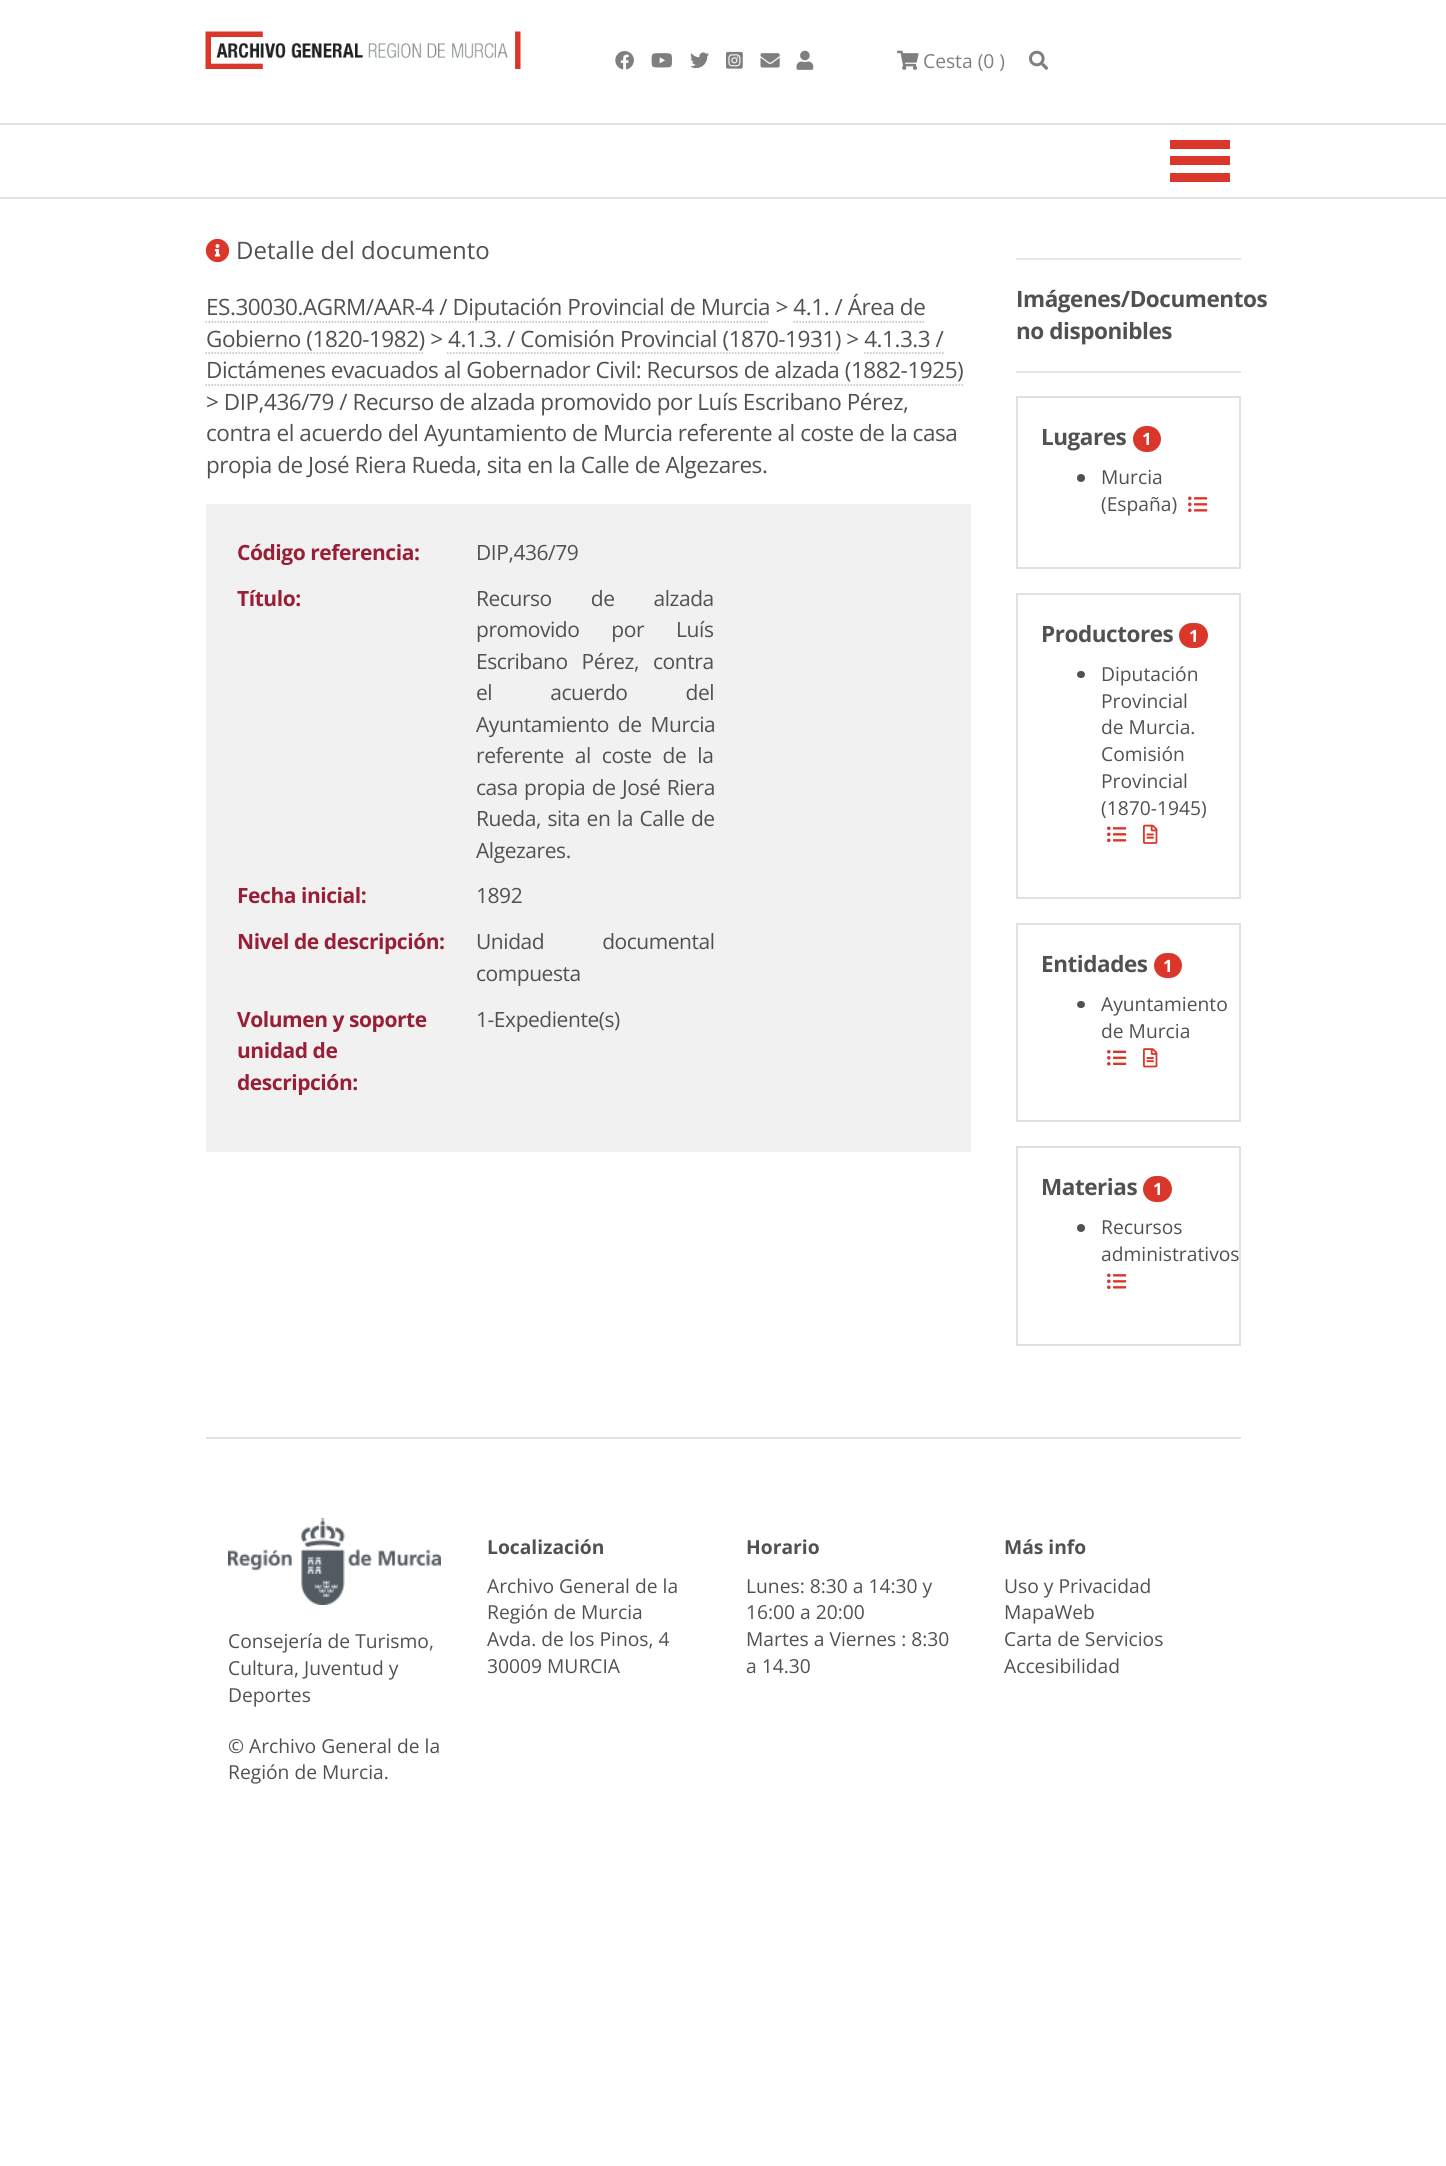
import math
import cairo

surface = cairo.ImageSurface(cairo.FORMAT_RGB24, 1446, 2166)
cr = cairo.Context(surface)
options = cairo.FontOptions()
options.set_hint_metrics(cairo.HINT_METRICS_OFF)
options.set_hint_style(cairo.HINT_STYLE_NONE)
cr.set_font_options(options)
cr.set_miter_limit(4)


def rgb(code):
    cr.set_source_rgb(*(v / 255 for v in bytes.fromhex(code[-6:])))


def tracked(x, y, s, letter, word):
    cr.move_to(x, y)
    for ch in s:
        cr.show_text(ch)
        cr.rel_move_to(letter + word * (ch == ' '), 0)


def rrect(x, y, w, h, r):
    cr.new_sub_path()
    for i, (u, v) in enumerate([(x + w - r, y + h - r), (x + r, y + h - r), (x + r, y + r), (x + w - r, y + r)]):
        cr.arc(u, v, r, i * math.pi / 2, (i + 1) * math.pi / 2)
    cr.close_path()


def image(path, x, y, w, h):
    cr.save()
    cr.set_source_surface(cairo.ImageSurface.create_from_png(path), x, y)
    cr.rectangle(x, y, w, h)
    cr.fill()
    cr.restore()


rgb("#ffffff")
cr.paint()
image("img/1.png", 205, 31, 316, 38)
image("img/2.png", 615, 51, 19, 19)
image("img/3.png", 651, 53, 22, 15)
image("img/4.png", 690, 52, 19, 17)
image("img/5.png", 726, 51, 17, 18)
image("img/6.png", 760, 53, 20, 15)
image("img/7.png", 796, 50, 18, 20)
image("img/8.png", 897, 50, 22, 20)
image("img/9.png", 1029, 50, 20, 20)
for x, y, w, h, color in [
    (0, 123, 1446, 2, "#dee2e6"),
    (0, 197, 1446, 2, "#dee2e6"),
    (1170, 140, 60, 9, "#db362a"),
    (1170, 156, 60, 9, "#db362a"),
    (1170, 173, 60, 9, "#db362a"),
]:
    rgb(color)
    cr.rectangle(x, y, w, h)
    cr.fill()
image("img/10.png", 205, 238, 25, 25)
cr.new_path()
cr.move_to(205.5, 322)
cr.line_to(769.5, 322)
rgb("#bdbdbd")
cr.set_line_width(1.5)
cr.set_dash([1.5, 1.5])
cr.stroke()
cr.new_path()
cr.move_to(793.5, 322)
cr.line_to(925.5, 322)
cr.stroke()
cr.new_path()
cr.move_to(205.5, 353)
cr.line_to(424.5, 353)
cr.stroke()
cr.new_path()
cr.move_to(447, 353)
cr.line_to(840, 353)
cr.stroke()
cr.new_path()
cr.move_to(864, 353)
cr.line_to(943.5, 353)
cr.stroke()
cr.new_path()
cr.move_to(205.5, 385)
cr.line_to(963, 385)
cr.stroke()
for x, y, w, h, color in [
    (206, 504, 765, 648, "#f1f1f1"),
    (1016, 258, 225, 2, "#e6e6e6"),
    (1016, 371, 225, 2, "#e6e6e6"),
]:
    rgb(color)
    cr.rectangle(x, y, w, h)
    cr.fill()
cr.rectangle(1017, 397, 223, 171)
rgb("#dee2e6")
cr.set_line_width(2)
cr.set_dash([])
cr.stroke()
rgb("#db362a")
rrect(1133, 426, 28, 26, 13)
cr.fill()
rgb("#515151")
cr.arc(1081, 478, 4, 0, 2 * math.pi)
cr.fill()
image("img/11.png", 1188, 496, 20, 17)
cr.rectangle(1017, 594, 223, 304)
rgb("#dee2e6")
cr.stroke()
rgb("#db362a")
rrect(1179, 623, 29, 25, 12.5)
cr.fill()
rgb("#515151")
rrect(1077, 671, 8, 7, 3.5)
cr.fill()
image("img/11.png", 1107, 826, 20, 17)
image("img/12.png", 1143, 824, 15, 20)
cr.rectangle(1017, 924, 223, 197)
rgb("#dee2e6")
cr.stroke()
rgb("#db362a")
rrect(1154, 953, 28, 25, 12.5)
cr.fill()
rgb("#515151")
rrect(1077, 1001, 8, 7, 3.5)
cr.fill()
image("img/13.png", 1107, 1050, 20, 16)
image("img/14.png", 1143, 1048, 15, 20)
cr.rectangle(1017, 1147, 223, 198)
rgb("#dee2e6")
cr.stroke()
rgb("#db362a")
rrect(1143, 1176, 29, 26, 13)
cr.fill()
rgb("#515151")
cr.arc(1081, 1228, 4, 0, 2 * math.pi)
cr.fill()
image("img/11.png", 1107, 1273, 20, 17)
rgb("#dee2e6")
cr.rectangle(206, 1437, 1035, 2)
cr.fill()
image("img/15.png", 228, 1518, 213, 87)
cr.select_font_face("Open Sans")
cr.set_font_size(19.25)
rgb("#7f7f7f")
cr.move_to(923, 68)
cr.show_text("Cesta (0 )")
cr.set_font_size(24)
rgb("#515151")
cr.move_to(236, 259)
cr.show_text("Detalle del documento")
cr.set_font_size(22.5)
for x, y, s in [
    (206, 315, "ES.30030.AGRM/AAR-4 / Diputación Provincial de Murcia > 4.1. / Área de"),
    (206, 347, "Gobierno (1820-1982) > 4.1.3. / Comisión Provincial (1870-1931) > 4.1.3.3 /"),
    (206, 378, "Dictámenes evacuados al Gobernador Civil: Recursos de alzada (1882-1925)"),
    (206, 410, "> DIP,436/79 / Recurso de alzada promovido por Luís Escribano Pérez,"),
    (206, 441, "contra el acuerdo del Ayuntamiento de Murcia referente al coste de la casa"),
    (206, 473, "propia de José Riera Rueda, sita en la Calle de Algezares."),
]:
    tracked(x, y, s, -0.45, 0)
cr.select_font_face("Open Sans", cairo.FONT_SLANT_NORMAL, cairo.FONT_WEIGHT_BOLD)
cr.set_font_size(21)
rgb("#981f36")
tracked(237, 560, "Código referencia:", -0.45, 0)
cr.select_font_face("Open Sans")
rgb("#515151")
tracked(476, 560, "DIP,436/79", -0.45, 0)
cr.select_font_face("Open Sans", cairo.FONT_SLANT_NORMAL, cairo.FONT_WEIGHT_BOLD)
rgb("#981f36")
tracked(237, 606, "Título:", -0.45, 0)
cr.select_font_face("Open Sans")
rgb("#515151")
tracked(476, 606, "Recurso de alzada", -0.45, 34)
tracked(476, 637, "promovido por Luís", -0.45, 27)
tracked(476, 669, "Escribano Pérez, contra", -0.45, 9)
tracked(476, 700, "el acuerdo del", -0.45, 53)
tracked(476, 732, "Ayuntamiento de Murcia", -0.45, 4)
tracked(476, 763, "referente al coste de la", -0.45, 6)
tracked(476, 795, "casa propia de José Riera", -0.45, 1.5)
tracked(476, 826, "Rueda, sita en la Calle de", -0.45, 1.5)
tracked(476, 858, "Algezares.", -0.45, 0)
cr.select_font_face("Open Sans", cairo.FONT_SLANT_NORMAL, cairo.FONT_WEIGHT_BOLD)
rgb("#981f36")
tracked(237, 903, "Fecha inicial:", -0.45, 0)
cr.select_font_face("Open Sans")
rgb("#515151")
tracked(476, 903, "1892", -0.45, 0)
cr.select_font_face("Open Sans", cairo.FONT_SLANT_NORMAL, cairo.FONT_WEIGHT_BOLD)
rgb("#981f36")
tracked(237, 949, "Nivel de descripción:", -0.45, 0)
cr.select_font_face("Open Sans")
rgb("#515151")
tracked(476, 949, "Unidad documental", -0.45, 53)
tracked(476, 981, "compuesta", -0.45, 0)
cr.select_font_face("Open Sans", cairo.FONT_SLANT_NORMAL, cairo.FONT_WEIGHT_BOLD)
rgb("#981f36")
for x, y, s in [
    (237, 1027, "Volumen y soporte"),
    (237, 1058, "unidad de"),
    (237, 1090, "descripción:"),
]:
    tracked(x, y, s, -0.45, 0)
cr.select_font_face("Open Sans")
rgb("#515151")
tracked(476, 1027, "1-Expediente(s)", -0.45, 0)
cr.select_font_face("Open Sans", cairo.FONT_SLANT_NORMAL, cairo.FONT_WEIGHT_BOLD)
cr.set_font_size(22.5)
for x, y, s in [
    (1016, 307, "Imágenes/Documentos"),
    (1016, 339, "no disponibles"),
    (1041, 445, "Lugares"),
]:
    tracked(x, y, s, -0.45, 0)
cr.set_font_size(17)
rgb("#ffffff")
tracked(1142, 445, "1", -0.45, 0)
cr.select_font_face("Open Sans")
cr.set_font_size(19.25)
rgb("#515151")
cr.move_to(1101, 484)
cr.show_text("Murcia")
cr.move_to(1101, 511)
cr.show_text("(España)")
cr.select_font_face("Open Sans", cairo.FONT_SLANT_NORMAL, cairo.FONT_WEIGHT_BOLD)
cr.set_font_size(22.5)
tracked(1041, 642, "Productores", -0.45, 0)
cr.set_font_size(17)
rgb("#ffffff")
tracked(1189, 642, "1", -0.45, 0)
cr.select_font_face("Open Sans")
cr.set_font_size(19.25)
rgb("#515151")
for x, y, s in [
    (1101, 681, "Diputación"),
    (1101, 708, "Provincial"),
    (1101, 734, "de Murcia."),
    (1101, 761, "Comisión"),
    (1101, 788, "Provincial"),
    (1101, 815, "(1870-1945)"),
]:
    cr.move_to(x, y)
    cr.show_text(s)
cr.select_font_face("Open Sans", cairo.FONT_SLANT_NORMAL, cairo.FONT_WEIGHT_BOLD)
cr.set_font_size(22.5)
tracked(1041, 972, "Entidades", -0.45, 0)
cr.set_font_size(17)
rgb("#ffffff")
tracked(1163, 972, "1", -0.45, 0)
cr.select_font_face("Open Sans")
cr.set_font_size(19.25)
rgb("#515151")
cr.move_to(1101, 1011)
cr.show_text("Ayuntamiento")
cr.move_to(1101, 1038)
cr.show_text("de Murcia")
cr.select_font_face("Open Sans", cairo.FONT_SLANT_NORMAL, cairo.FONT_WEIGHT_BOLD)
cr.set_font_size(22.5)
tracked(1041, 1195, "Materias", -0.45, 0)
cr.set_font_size(17)
rgb("#ffffff")
tracked(1153, 1195, "1", -0.45, 0)
cr.select_font_face("Open Sans")
cr.set_font_size(19.25)
rgb("#515151")
cr.move_to(1101, 1234)
cr.show_text("Recursos")
cr.move_to(1101, 1261)
cr.show_text("administrativos")
cr.select_font_face("Open Sans", cairo.FONT_SLANT_NORMAL, cairo.FONT_WEIGHT_BOLD)
cr.move_to(487, 1554)
cr.show_text("Localización")
cr.select_font_face("Open Sans")
for x, y, s in [
    (487, 1593, "Archivo General de la"),
    (487, 1619, "Región de Murcia"),
    (487, 1646, "Avda. de los Pinos, 4"),
    (487, 1673, "30009 MURCIA"),
]:
    cr.move_to(x, y)
    cr.show_text(s)
cr.select_font_face("Open Sans", cairo.FONT_SLANT_NORMAL, cairo.FONT_WEIGHT_BOLD)
cr.move_to(746, 1554)
cr.show_text("Horario")
cr.select_font_face("Open Sans")
for x, y, s in [
    (746, 1593, "Lunes: 8:30 a 14:30 y"),
    (746, 1619, "16:00 a 20:00"),
    (746, 1646, "Martes a Viernes : 8:30"),
    (746, 1673, "a 14.30"),
]:
    cr.move_to(x, y)
    cr.show_text(s)
cr.select_font_face("Open Sans", cairo.FONT_SLANT_NORMAL, cairo.FONT_WEIGHT_BOLD)
cr.move_to(1004, 1554)
cr.show_text("Más info")
cr.select_font_face("Open Sans")
for x, y, s in [
    (1004, 1593, "Uso y Privacidad"),
    (1004, 1619, "MapaWeb"),
    (1004, 1646, "Carta de Servicios"),
    (1004, 1673, "Accesibilidad"),
    (228, 1648, "Consejería de Turismo,"),
    (228, 1675, "Cultura, Juventud y"),
    (228, 1702, "Deportes"),
    (228, 1753, "© Archivo General de la"),
    (228, 1779, "Región de Murcia."),
]:
    cr.move_to(x, y)
    cr.show_text(s)
surface.write_to_png("page.png")
